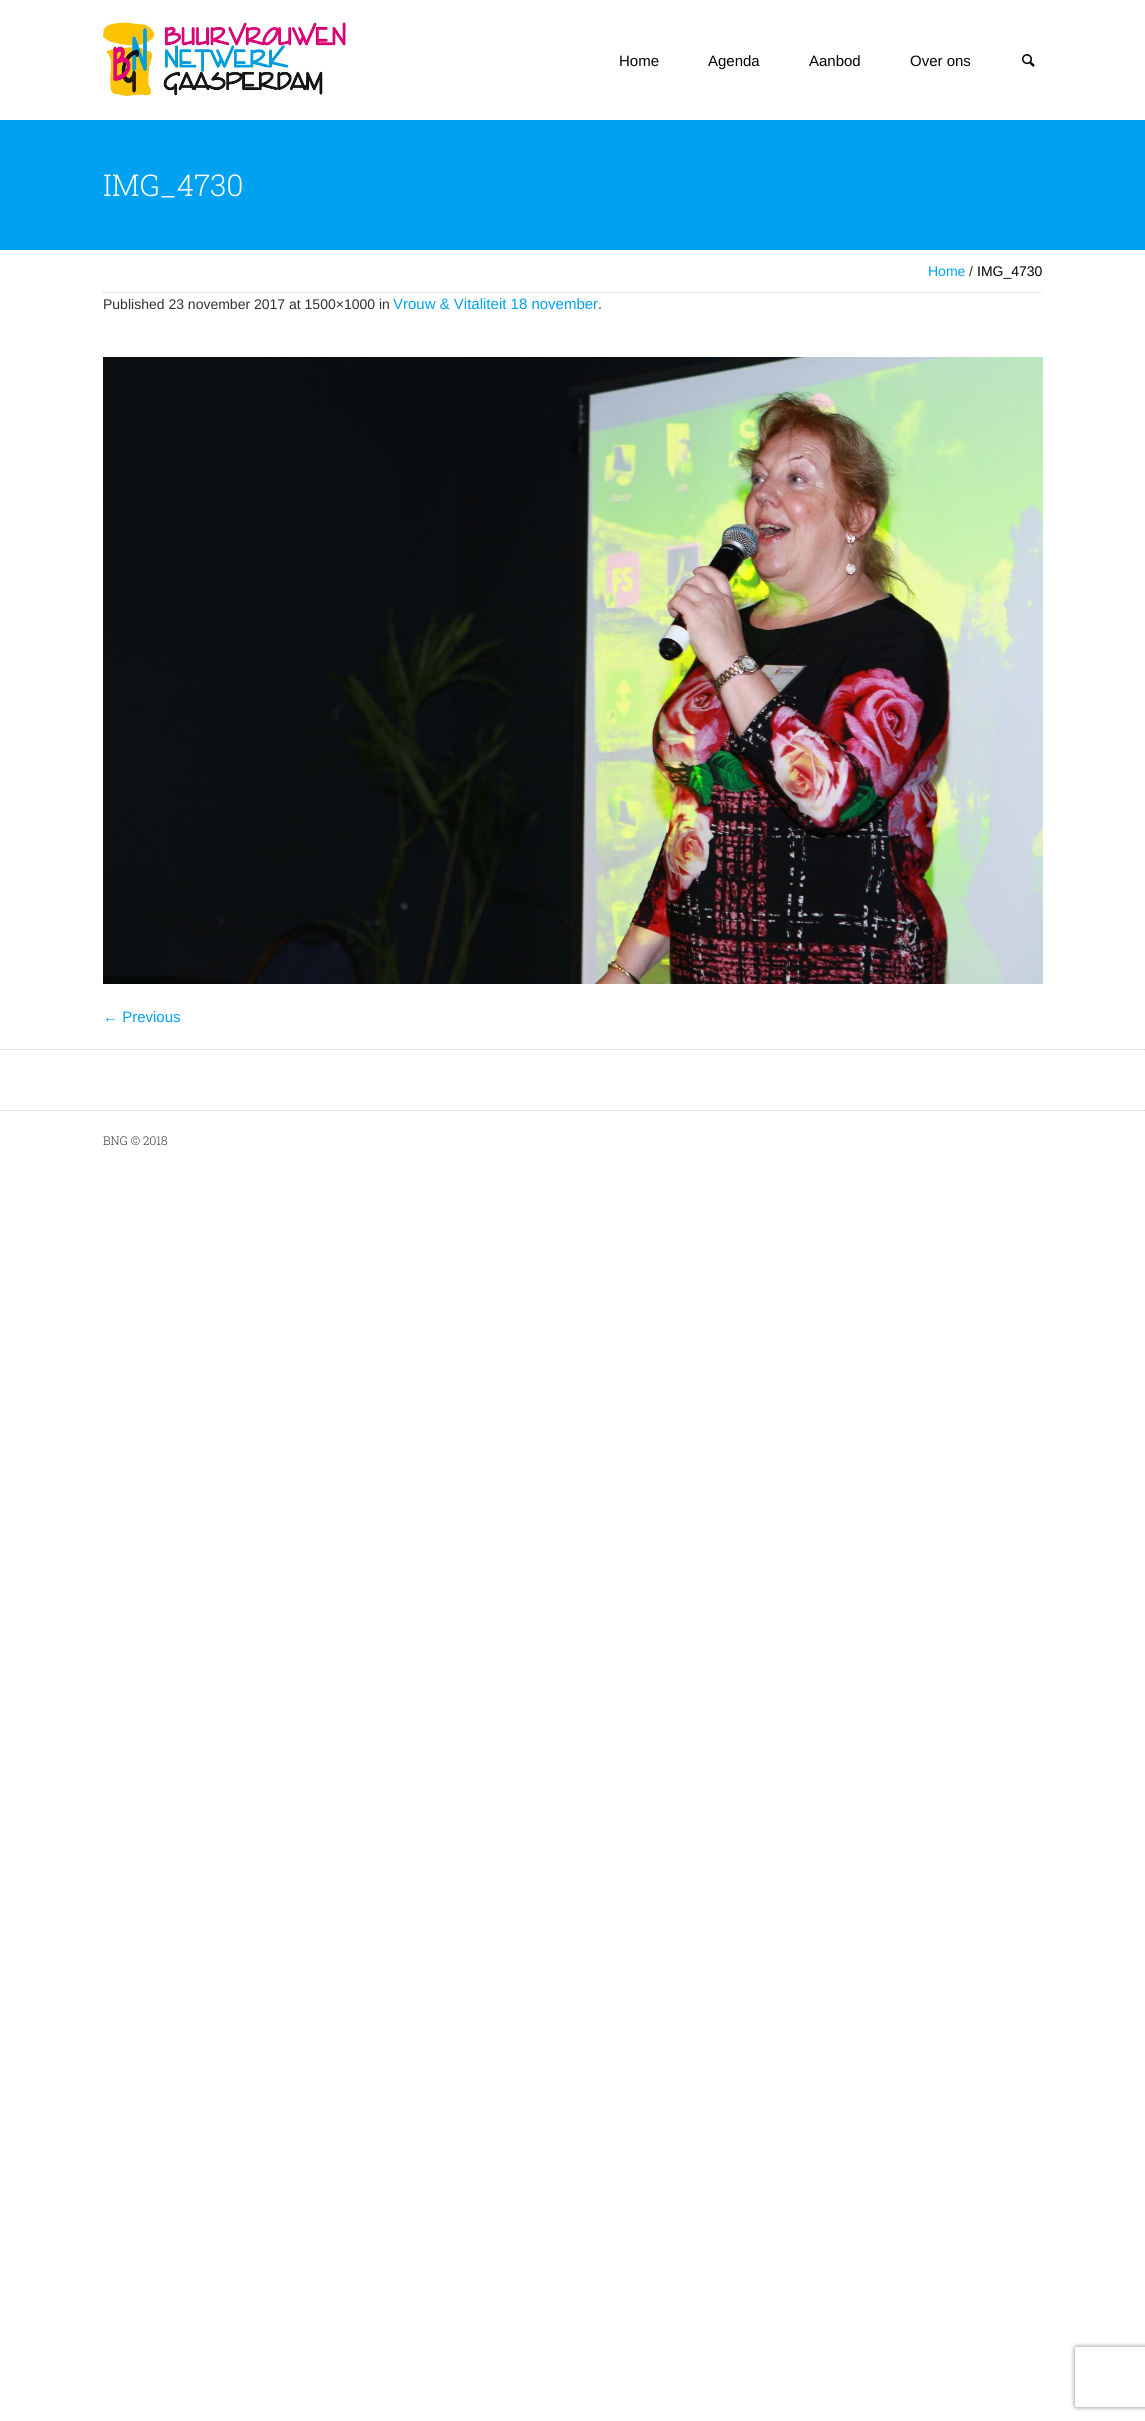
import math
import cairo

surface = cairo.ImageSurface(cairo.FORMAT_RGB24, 1145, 2421)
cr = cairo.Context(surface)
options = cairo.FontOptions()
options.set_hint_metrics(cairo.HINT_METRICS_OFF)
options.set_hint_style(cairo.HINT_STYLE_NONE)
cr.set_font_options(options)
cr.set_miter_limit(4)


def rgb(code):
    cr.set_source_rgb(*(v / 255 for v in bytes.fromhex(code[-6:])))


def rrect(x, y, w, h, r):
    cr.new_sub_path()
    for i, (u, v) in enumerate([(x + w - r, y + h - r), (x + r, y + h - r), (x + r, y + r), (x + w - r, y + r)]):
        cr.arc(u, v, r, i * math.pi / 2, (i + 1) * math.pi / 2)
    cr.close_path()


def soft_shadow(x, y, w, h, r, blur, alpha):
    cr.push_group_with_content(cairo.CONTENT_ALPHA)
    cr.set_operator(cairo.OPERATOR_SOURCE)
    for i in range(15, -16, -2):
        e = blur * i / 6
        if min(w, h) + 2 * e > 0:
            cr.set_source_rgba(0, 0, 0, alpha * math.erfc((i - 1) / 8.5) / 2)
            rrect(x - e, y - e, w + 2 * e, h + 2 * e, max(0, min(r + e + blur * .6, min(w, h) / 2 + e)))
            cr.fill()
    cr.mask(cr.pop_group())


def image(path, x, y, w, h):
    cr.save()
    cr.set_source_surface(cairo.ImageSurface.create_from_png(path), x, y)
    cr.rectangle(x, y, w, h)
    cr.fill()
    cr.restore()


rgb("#ffffff")
cr.paint()
image("img/1.png", 103, 22, 245, 75)
image("img/2.png", 1022, 54, 13, 13)
rgb("#00a1f0")
cr.rectangle(0, 120, 1145, 130)
cr.fill()
cr.new_path()
cr.move_to(103, 292.5)
cr.line_to(1043, 292.5)
rgb("#d0d0d0")
cr.set_line_width(1)
cr.set_dash([1, 1])
cr.stroke()
image("img/3.png", 103, 357, 940, 627)
cr.new_path()
cr.move_to(0, 1049.5)
cr.line_to(1145, 1049.5)
cr.stroke()
cr.new_path()
cr.move_to(0, 1110.5)
cr.line_to(1145, 1110.5)
cr.stroke()
cr.save()
cr.set_fill_rule(cairo.FILL_RULE_EVEN_ODD)
cr.new_path()
cr.move_to(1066, 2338)
cr.line_to(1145, 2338)
cr.line_to(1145, 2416)
cr.line_to(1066, 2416)
cr.close_path()
cr.move_to(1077, 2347)
cr.line_to(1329, 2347)
cr.curve_to(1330, 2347, 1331, 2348, 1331, 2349)
cr.line_to(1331, 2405)
cr.curve_to(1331, 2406, 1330, 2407, 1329, 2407)
cr.line_to(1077, 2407)
cr.curve_to(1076, 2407, 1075, 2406, 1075, 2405)
cr.line_to(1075, 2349)
cr.curve_to(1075, 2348, 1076, 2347, 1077, 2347)
cr.close_path()
cr.clip()
rgb("#808080")
soft_shadow(1075, 2347, 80, 60, 2, 2.5, 1)
cr.restore()
cr.select_font_face("Liberation Sans")
cr.set_font_size(15)
rgb("#020202")
for x, y, s in [
    (619, 66, "Home"),
    (708, 66, "Agenda"),
    (809, 66, "Aanbod"),
    (910, 66, "Over ons"),
]:
    cr.move_to(x, y)
    cr.show_text(s)
cr.select_font_face("Roboto Slab Light")
cr.set_font_size(30)
rgb("#ffffff")
cr.move_to(103, 196)
cr.show_text("IMG_4730")
cr.select_font_face("Liberation Sans")
cr.set_font_size(14)
rgb("#00a1f0")
cr.move_to(928, 276)
cr.show_text("Home")
rgb("#303030")
cr.move_to(969, 276)
cr.show_text("/")
rgb("#020202")
cr.move_to(977, 276)
cr.show_text("IMG_4730")
rgb("#303030")
cr.move_to(103, 309)
cr.show_text("Published 23 november 2017 at 1500×1000 in")
cr.set_font_size(15)
rgb("#00a1f0")
cr.move_to(393, 309)
cr.show_text("Vrouw & Vitaliteit 18 november")
cr.set_font_size(14)
rgb("#303030")
cr.move_to(598, 309)
cr.show_text(".")
cr.set_font_size(15)
rgb("#00a1f0")
cr.move_to(103, 1022)
cr.show_text("← Previous")
cr.select_font_face("Roboto Slab Light")
cr.set_font_size(12)
rgb("#303030")
cr.move_to(103, 1145)
cr.show_text("BNG © 2018")
surface.write_to_png("page.png")
